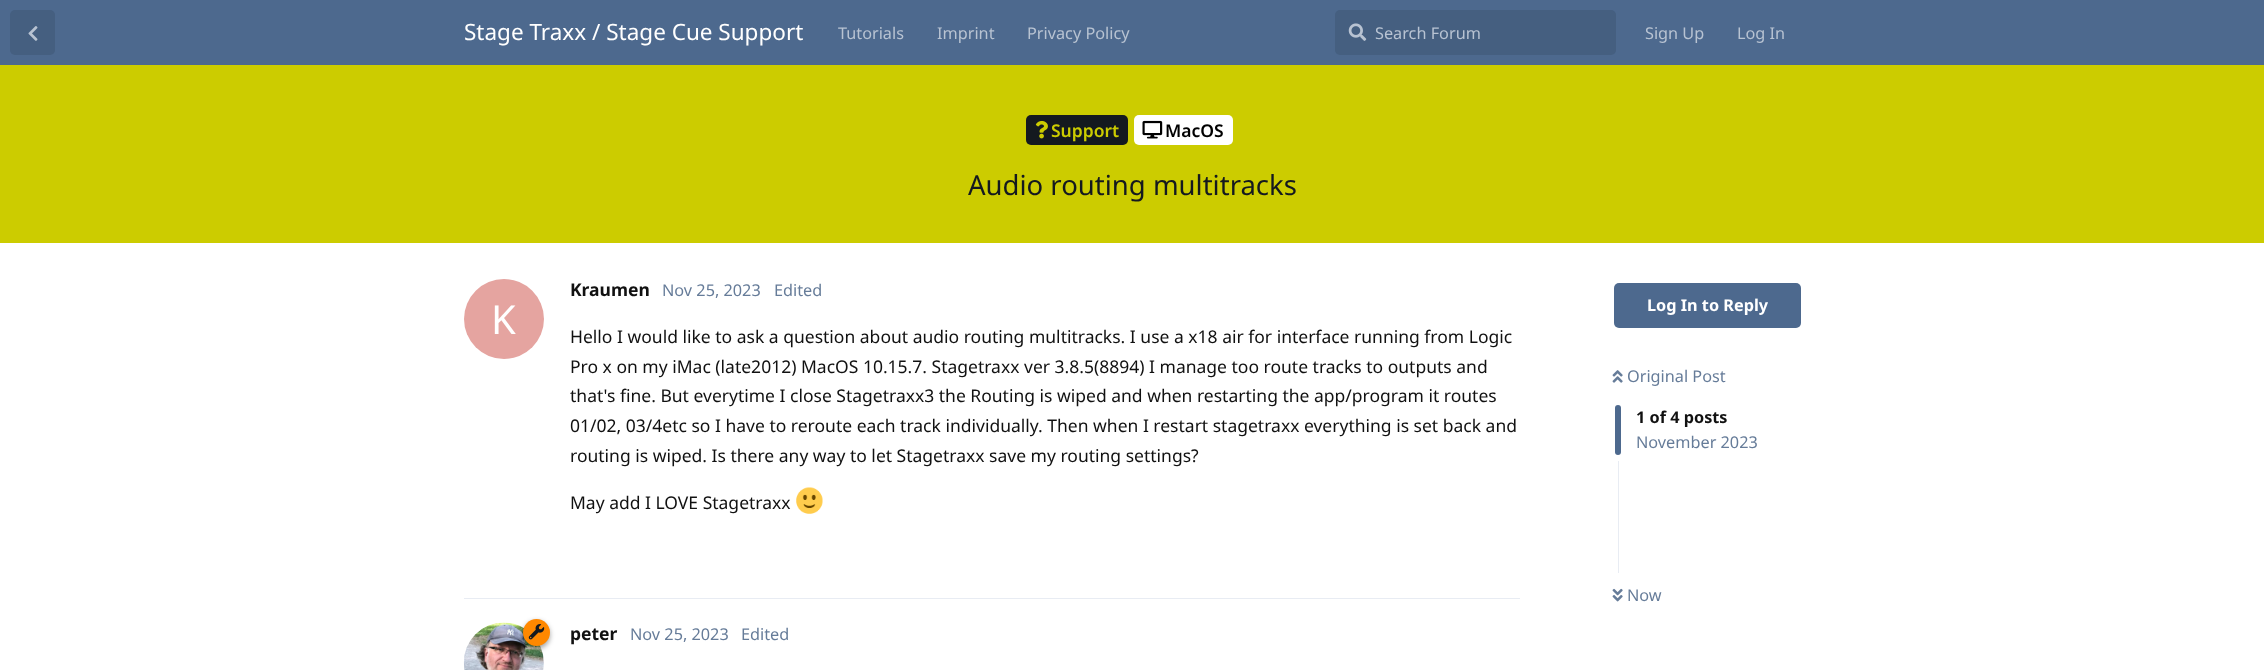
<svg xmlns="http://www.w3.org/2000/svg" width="2264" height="670">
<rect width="100%" height="100%" fill="#fff"/>
<rect width="2264" height="65" fill="#4d698e"/>
<rect x="10" y="10" width="45" height="45" rx="5" fill="#455f80"/>
<image x="28" y="26" width="10" height="15" href="media/1.png"/>
<text x="464" y="40" style="font-family:Noto Sans;font-size:22.5px;fill:#fff">Stage Traxx / Stage Cue Support</text>
<text x="838" y="39" style="font-family:Noto Sans;font-size:16.25px;fill:#b8c3d2">Tutorials</text>
<text x="937" y="39" style="font-family:Noto Sans;font-size:16.25px;fill:#b8c3d2">Imprint</text>
<text x="1027" y="39" style="font-family:Noto Sans;font-size:16.25px;fill:#b8c3d2">Privacy Policy</text>
<rect x="1335" y="10" width="281" height="45" rx="5" fill="#455f80"/>
<image x="1348" y="23" width="19" height="18" href="media/2.png"/>
<text x="1375" y="39" style="font-family:Noto Sans;font-size:16.25px;fill:#b8c3d2">Search Forum</text>
<text x="1645" y="39" style="font-family:Noto Sans;font-size:16.25px;fill:#b8c3d2">Sign Up</text>
<text x="1737" y="39" style="font-family:Noto Sans;font-size:16.25px;fill:#b8c3d2">Log In</text>
<rect y="65" width="2264" height="178" fill="#cc0"/>
<rect x="1026" y="115" width="102" height="30" rx="5" fill="#14191f"/>
<image x="1035" y="120" width="13" height="19" href="media/3.png"/>
<text x="1051" y="137" style="font-family:Noto Sans;font-size:17.5px;font-weight:600;fill:#cc0">Support</text>
<rect x="1134" y="115" width="99" height="30" rx="5" fill="#fff"/>
<image x="1142" y="120" width="21" height="19" href="media/4.png"/>
<text x="1165" y="137" style="font-family:Noto Sans;font-size:17.5px;font-weight:600;fill:#000">MacOS</text>
<text x="968" y="195" style="font-family:Noto Sans;font-size:27.5px;fill:#14191f">Audio routing multitracks</text>
<rect x="464" y="598" width="1056" height="1" fill="#e8ecf3"/>
<text x="570" y="296" style="font-family:Noto Sans;font-size:17.5px;font-weight:bold;fill:#111">Kraumen</text>
<circle cx="504" cy="319" r="40" fill="#e5a4a0"/>
<text x="491" y="334" style="font-family:Noto Sans;font-size:40px;fill:#fff">K</text>
<text x="662" y="296" style="font-family:Noto Sans;font-size:16.25px;fill:#667c99">Nov 25, 2023</text>
<text x="774" y="296" style="font-family:Noto Sans;font-size:16.25px;fill:#667c99">Edited</text>
<text x="570" y="343" style="font-family:Noto Sans;font-size:17.5px;fill:#111">Hello I would like to ask a question about audio routing multitracks. I use a x18 air for interface running from Logic</text>
<text x="570" y="373" style="font-family:Noto Sans;font-size:17.5px;fill:#111">Pro x on my iMac (late2012) MacOS 10.15.7. Stagetraxx ver 3.8.5(8894) I manage too route tracks to outputs and</text>
<text x="570" y="402" style="font-family:Noto Sans;font-size:17.5px;fill:#111">that's fine. But everytime I close Stagetraxx3 the Routing is wiped and when restarting the app/program it routes</text>
<text x="570" y="432" style="font-family:Noto Sans;font-size:17.5px;fill:#111">01/02, 03/4etc so I have to reroute each track individually. Then when I restart stagetraxx everything is set back and</text>
<text x="570" y="462" style="font-family:Noto Sans;font-size:17.5px;fill:#111">routing is wiped. Is there any way to let Stagetraxx save my routing settings?</text>
<text x="570" y="509" style="font-family:Noto Sans;font-size:17.5px;fill:#111">May add I LOVE Stagetraxx</text>
<image x="796" y="487" width="27" height="27" href="media/5.png"/>
<circle cx="504" cy="663" r="40" fill="#e8ecf3"/>
<image x="463" y="622" width="81" height="48" href="media/7.png"/>
<rect x="523" y="621" width="27" height="28" rx="13.5" fill="#00000059" filter="blur(2.5px)"/>
<circle cx="536.5" cy="632.5" r="13.5" fill="#f80"/>
<image x="528" y="624" width="17" height="16" href="media/6.png"/>
<text x="570" y="640" style="font-family:Noto Sans;font-size:17.5px;font-weight:bold;fill:#111">peter</text>
<text x="630" y="640" style="font-family:Noto Sans;font-size:16.25px;fill:#667c99">Nov 25, 2023</text>
<text x="741" y="640" style="font-family:Noto Sans;font-size:16.25px;fill:#667c99">Edited</text>
<rect x="1614" y="283" width="187" height="45" rx="5" fill="#4d698e"/>
<text x="1647" y="311" style="font-family:Noto Sans;font-size:16.25px;font-weight:bold;fill:#fff">Log In to Reply</text>
<image x="1612" y="370" width="11" height="13" href="media/8.png"/>
<text x="1627" y="382" style="font-family:Noto Sans;font-size:16.25px;fill:#667c99">Original Post</text>
<rect x="1615" y="405" width="6" height="50" rx="3" fill="#4d698e"/>
<text x="1636" y="423" style="font-family:Noto Sans;font-size:16.25px;font-weight:bold;fill:#111">1 of 4 posts</text>
<text x="1636" y="448" style="font-family:Noto Sans;font-size:16.25px;fill:#667c99">November 2023</text>
<rect x="1618" y="461" width="1" height="112" fill="#e8ecf3"/>
<image x="1612" y="588" width="11" height="14" href="media/9.png"/>
<text x="1627" y="601" style="font-family:Noto Sans;font-size:16.25px;fill:#667c99">Now</text>
</svg>
